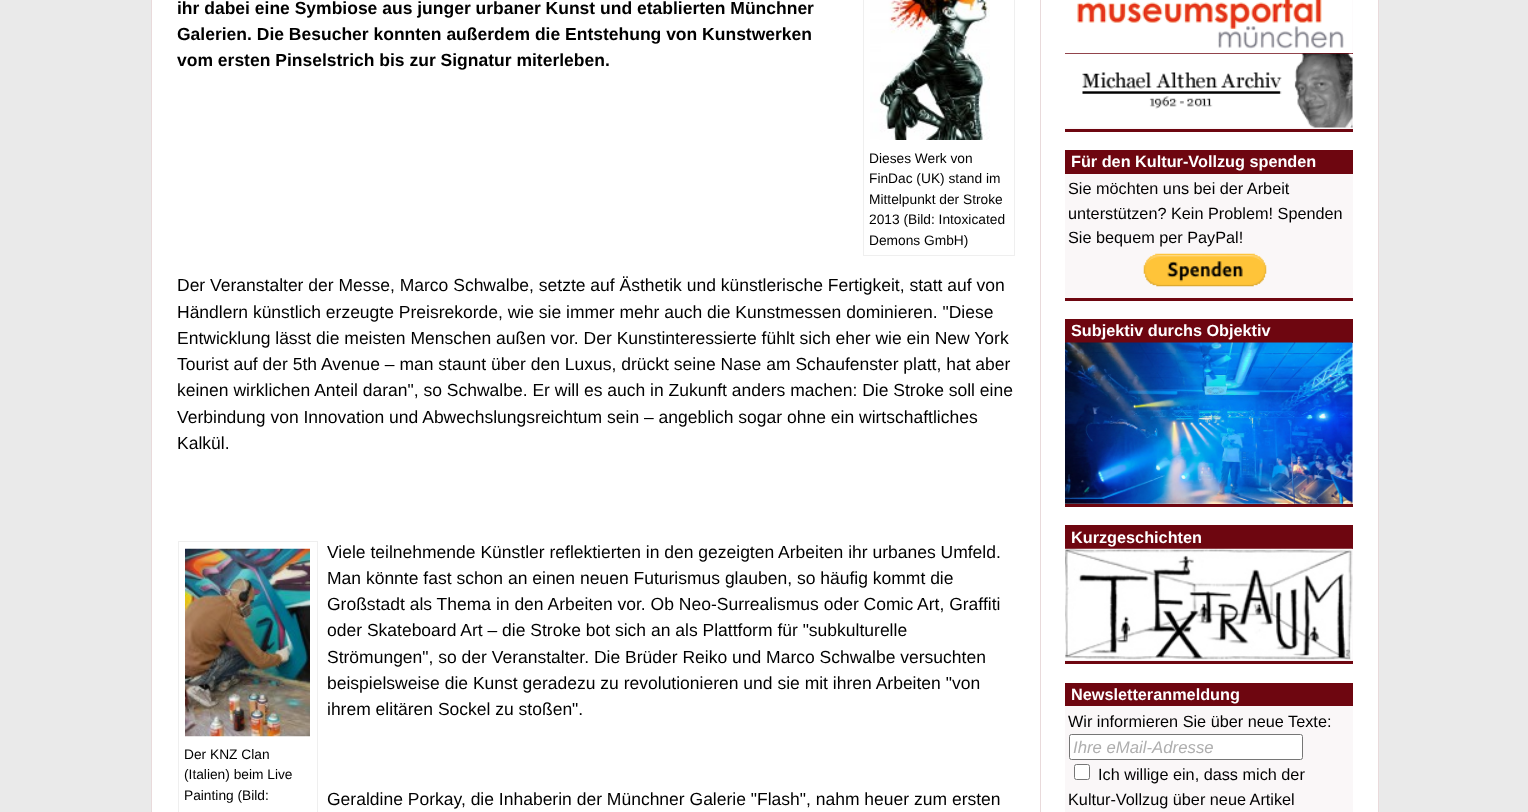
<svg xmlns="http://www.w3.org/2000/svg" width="1528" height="812">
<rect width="100%" height="100%" fill="#eaeaea"/>
<rect x="152" width="1226" height="812" fill="#fff"/>
<rect x="1378" width="1" height="812" fill="#e9dadb"/>
<rect x="151" width="1" height="812" fill="#e9dadb"/>
<rect x="1040" width="1" height="812" fill="#e9dadb"/>
<text x="177" y="14" style="font-family:Liberation Sans;font-size:17.5px;font-weight:bold;fill:#000">ihr dabei eine Symbiose aus junger urbaner Kunst und etablierten Münchner</text>
<text x="177" y="40" style="font-family:Liberation Sans;font-size:17.5px;font-weight:bold;fill:#000">Galerien. Die Besucher konnten außerdem die Entstehung von Kunstwerken</text>
<text x="177" y="66" style="font-family:Liberation Sans;font-size:17.5px;font-weight:bold;fill:#000">vom ersten Pinselstrich bis zur Signatur miterleben.</text>
<rect x="863.5" y="-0.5" width="151" height="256" fill="none" stroke="#efefef"/>
<image x="870" y="0" width="120" height="140" href="media/1.png"/>
<text x="869" y="163" style="font-family:Liberation Sans;font-size:13.75px;fill:#000">Dieses Werk von</text>
<text x="869" y="183" style="font-family:Liberation Sans;font-size:13.75px;fill:#000">FinDac (UK) stand im</text>
<text x="869" y="204" style="font-family:Liberation Sans;font-size:13.75px;fill:#000">Mittelpunkt der Stroke</text>
<text x="869" y="224" style="font-family:Liberation Sans;font-size:13.75px;fill:#000">2013 (Bild: Intoxicated</text>
<text x="869" y="245" style="font-family:Liberation Sans;font-size:13.75px;fill:#000">Demons GmbH)</text>
<text x="177" y="291" style="font-family:Liberation Sans;font-size:17.5px;fill:#000">Der Veranstalter der Messe, Marco Schwalbe, setzte auf Ästhetik und künstlerische Fertigkeit, statt auf von</text>
<text x="177" y="318" style="font-family:Liberation Sans;font-size:17.5px;fill:#000">Händlern künstlich erzeugte Preisrekorde, wie sie immer mehr auch die Kunstmessen dominieren. "Diese</text>
<text x="177" y="344" style="font-family:Liberation Sans;font-size:17.5px;fill:#000">Entwicklung lässt die meisten Menschen außen vor. Der Kunstinteressierte fühlt sich eher wie ein New York</text>
<text x="177" y="370" style="font-family:Liberation Sans;font-size:17.5px;fill:#000">Tourist auf der 5th Avenue – man staunt über den Luxus, drückt seine Nase am Schaufenster platt, hat aber</text>
<text x="177" y="396" style="font-family:Liberation Sans;font-size:17.5px;fill:#000">keinen wirklichen Anteil daran", so Schwalbe. Er will es auch in Zukunft anders machen: Die Stroke soll eine</text>
<text x="177" y="423" style="font-family:Liberation Sans;font-size:17.5px;fill:#000">Verbindung von Innovation und Abwechslungsreichtum sein – angeblich sogar ohne ein wirtschaftliches</text>
<text x="177" y="449" style="font-family:Liberation Sans;font-size:17.5px;fill:#000">Kalkül.</text>
<text x="327" y="558" style="font-family:Liberation Sans;font-size:17.5px;fill:#000">Viele teilnehmende Künstler reflektierten in den gezeigten Arbeiten ihr urbanes Umfeld.</text>
<text x="327" y="584" style="font-family:Liberation Sans;font-size:17.5px;fill:#000">Man könnte fast schon an einen neuen Futurismus glauben, so häufig kommt die</text>
<text x="327" y="610" style="font-family:Liberation Sans;font-size:17.5px;fill:#000">Großstadt als Thema in den Arbeiten vor. Ob Neo-Surrealismus oder Comic Art, Graffiti</text>
<text x="327" y="636" style="font-family:Liberation Sans;font-size:17.5px;fill:#000">oder Skateboard Art – die Stroke bot sich an als Plattform für "subkulturelle</text>
<text x="327" y="663" style="font-family:Liberation Sans;font-size:17.5px;fill:#000">Strömungen", so der Veranstalter. Die Brüder Reiko und Marco Schwalbe versuchten</text>
<text x="327" y="689" style="font-family:Liberation Sans;font-size:17.5px;fill:#000">beispielsweise die Kunst geradezu zu revolutionieren und sie mit ihren Arbeiten "von</text>
<text x="327" y="715" style="font-family:Liberation Sans;font-size:17.5px;fill:#000">ihrem elitären Sockel zu stoßen".</text>
<rect x="178.5" y="541.5" width="139" height="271" fill="none" stroke="#efefef"/>
<image x="185" y="548" width="125" height="189" href="media/2.png"/>
<text x="184" y="759" style="font-family:Liberation Sans;font-size:13.75px;fill:#000">Der KNZ Clan</text>
<text x="184" y="779" style="font-family:Liberation Sans;font-size:13.75px;fill:#000">(Italien) beim Live</text>
<text x="184" y="800" style="font-family:Liberation Sans;font-size:13.75px;fill:#000">Painting (Bild:</text>
<text x="327" y="805" style="font-family:Liberation Sans;font-size:17.5px;fill:#000">Geraldine Porkay, die Inhaberin der Münchner Galerie "Flash", nahm heuer zum ersten</text>
<rect x="1065" width="288" height="129" fill="#faf7f8"/>
<rect x="1065" y="129" width="288" height="3" fill="#6e0610"/>
<image x="1065" y="0" width="288" height="60" href="media/3.png"/>
<rect x="1065" y="53" width="288" height="1" fill="#6e0610"/>
<image x="1065" y="53" width="288" height="75" href="media/4.png"/>
<rect x="1065" y="150" width="288" height="24" fill="#6e0610"/>
<text x="1071" y="167" style="font-family:Liberation Sans;font-size:16.25px;font-weight:bold;fill:#fff">Für den Kultur-Vollzug spenden</text>
<rect x="1065" y="174" width="288" height="124" fill="#faf7f8"/>
<rect x="1065" y="298" width="288" height="3" fill="#6e0610"/>
<text x="1068" y="194" style="font-family:Liberation Sans;font-size:16.25px;fill:#000">Sie möchten uns bei der Arbeit</text>
<text x="1068" y="219" style="font-family:Liberation Sans;font-size:16.25px;fill:#000">unterstützen? Kein Problem! Spenden</text>
<text x="1068" y="243" style="font-family:Liberation Sans;font-size:16.25px;fill:#000">Sie bequem per PayPal!</text>
<image x="1143" y="253" width="124" height="34" href="media/5.png"/>
<rect x="1065" y="319" width="288" height="24" fill="#6e0610"/>
<text x="1071" y="336" style="font-family:Liberation Sans;font-size:16.25px;font-weight:bold;fill:#fff">Subjektiv durchs Objektiv</text>
<rect x="1065" y="343" width="288" height="161" fill="#faf7f8"/>
<rect x="1065" y="504" width="288" height="3" fill="#6e0610"/>
<image x="1065" y="342" width="288" height="162" href="media/6.png"/>
<rect x="1065" y="525" width="288" height="24" fill="#6e0610"/>
<text x="1071" y="543" style="font-family:Liberation Sans;font-size:16.25px;font-weight:bold;fill:#fff">Kurzgeschichten</text>
<rect x="1065" y="549" width="288" height="112" fill="#faf7f8"/>
<rect x="1065" y="661" width="288" height="3" fill="#6e0610"/>
<image x="1065" y="548" width="288" height="112" href="media/7.png"/>
<rect x="1065" y="683" width="288" height="23" fill="#6e0610"/>
<text x="1071" y="700" style="font-family:Liberation Sans;font-size:16.25px;font-weight:bold;fill:#fff">Newsletteranmeldung</text>
<rect x="1065" y="706" width="288" height="106" fill="#faf7f8"/>
<text x="1068" y="727" style="font-family:Liberation Sans;font-size:16.25px;fill:#000">Wir informieren Sie über neue Texte:</text>
<rect x="1069.5" y="734.5" width="233" height="25" rx="2" fill="#fff" stroke="#767676"/>
<text x="1073" y="753" style="font-family:Liberation Sans;font-size:16.75px;font-style:italic;fill:#afafaf">Ihre eMail-Adresse</text>
<rect x="1074.5" y="764.5" width="15" height="15" rx="2" fill="#fff" stroke="#767676"/>
<text x="1098" y="780" style="font-family:Liberation Sans;font-size:16.25px;fill:#000">Ich willige ein, dass mich der</text>
<text x="1068" y="805" style="font-family:Liberation Sans;font-size:16.25px;fill:#000">Kultur-Vollzug über neue Artikel</text>
</svg>
